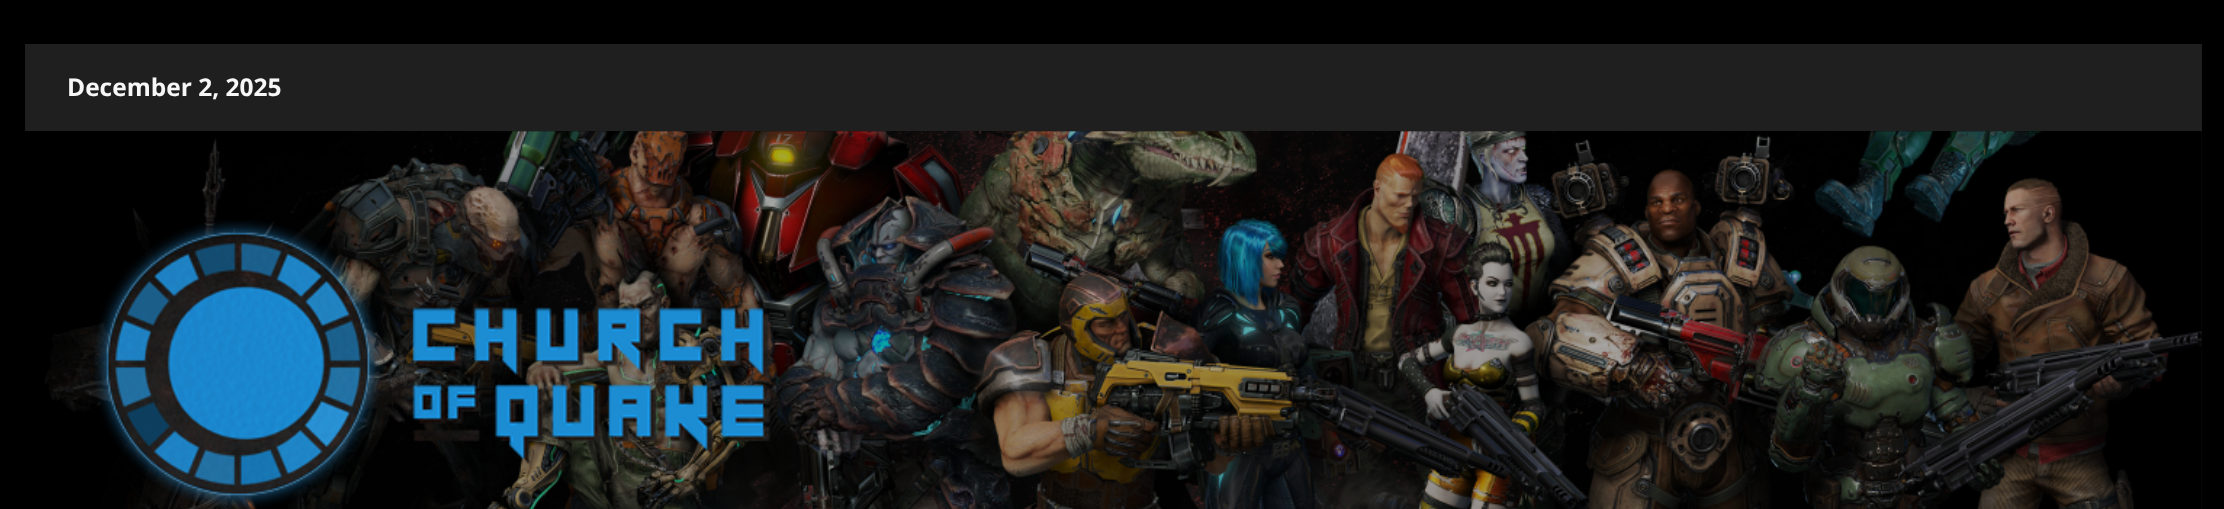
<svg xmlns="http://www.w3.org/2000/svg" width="2224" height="509">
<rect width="100%" height="100%" fill="#000"/>
<rect x="25" y="131" width="2177" height="378" fill="#0b0b0b"/>
<rect x="25" y="44" width="2177" height="87" fill="#1f1f1f"/>
<text x="67" y="96" style="font-family:Open Sans;font-size:24.5px;font-weight:bold;fill:#f7f7f7">December 2, 2025</text>
<image x="25" y="131" width="2177" height="378" href="media/1.png"/>
<image x="94" y="220" width="677" height="288" href="media/2.png"/>
</svg>
